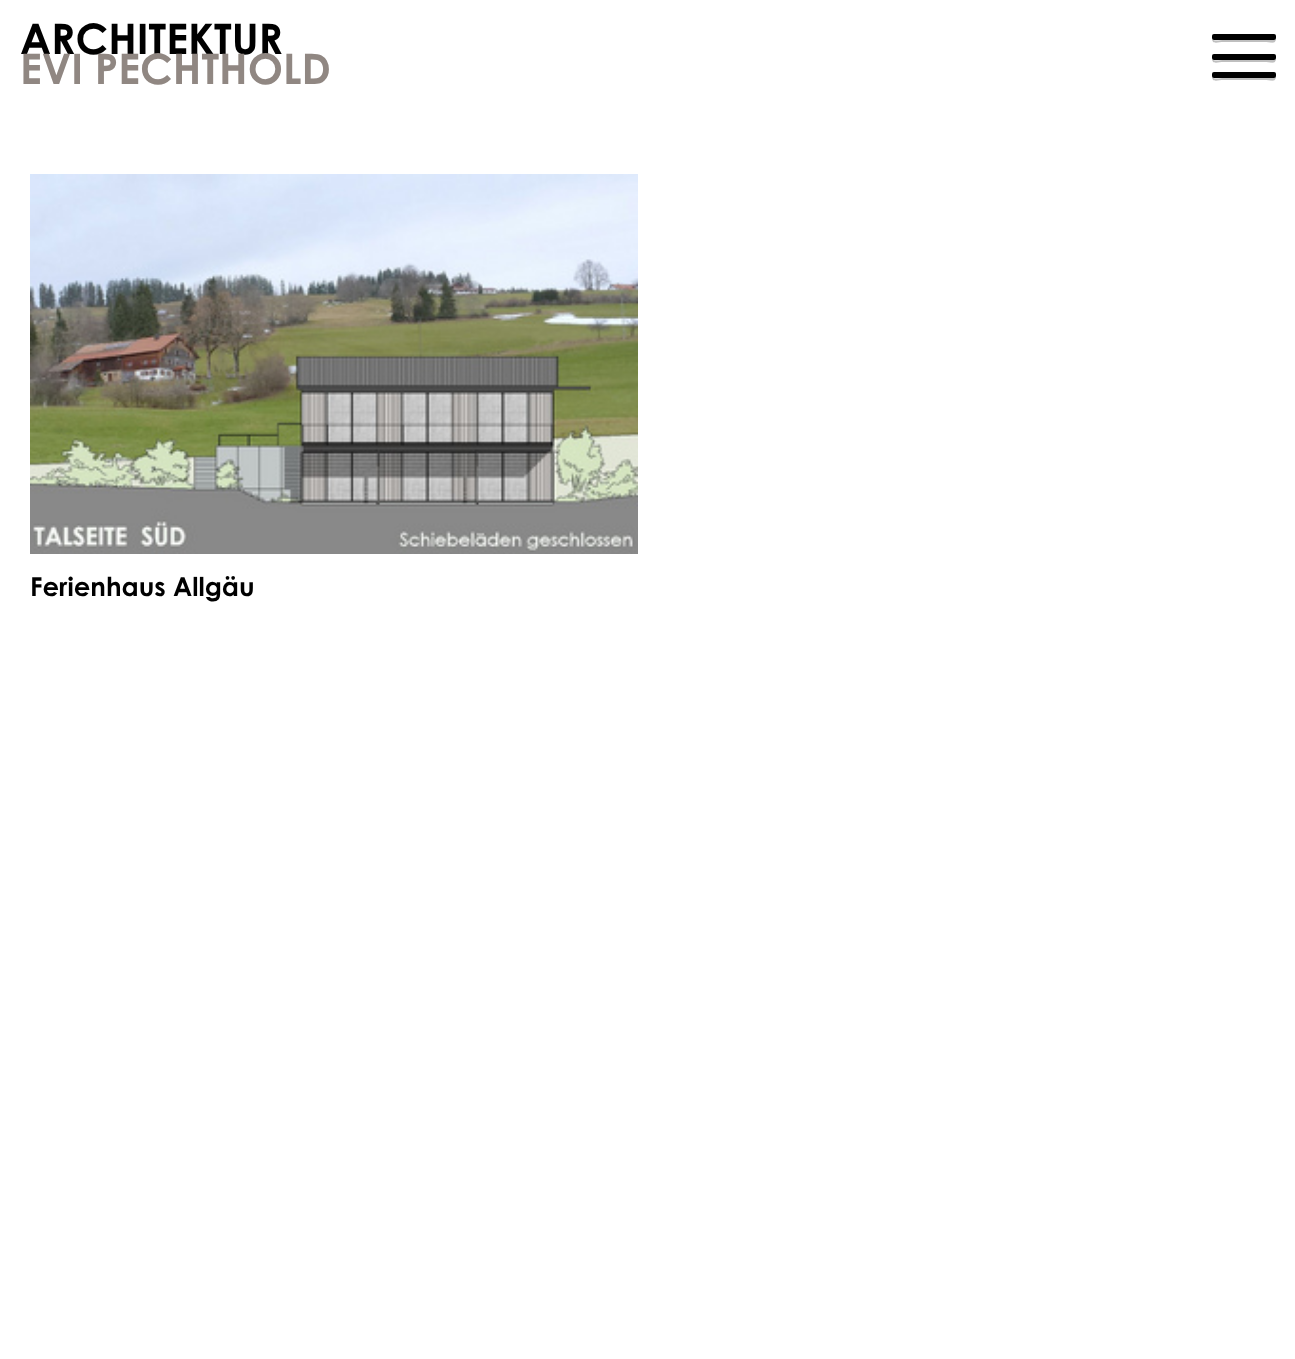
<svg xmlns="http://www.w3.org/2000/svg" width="1295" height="1359">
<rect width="100%" height="100%" fill="#fff"/>
<text x="20" y="54" style="font-family:Century Gothic;font-size:42px;font-weight:bold;fill:#000">ARCHITEKTUR</text>
<text x="20" y="84" style="font-family:Century Gothic;font-size:42px;font-weight:bold;fill:#908782">EVI PECHTHOLD</text>
<image x="30" y="174" width="608" height="380" href="media/1.png"/>
<text x="30" y="596" style="font-family:Century Gothic;font-size:26px;font-weight:bold;fill:#000">Ferienhaus Allgäu</text>
<path d="M1212 38c0 7 5 4 12 4h40c7 0 12 3 12-4l-1 2h-51c-4 0-12 2-12-2z" fill="#bfbfbf"/>
<rect x="1212" y="34" width="64" height="6" rx="2" fill="#000"/>
<path d="M1212 58c0 7 5 4 12 4h40c7 0 12 3 12-4l-1 2h-51c-4 0-12 2-12-2z" fill="#bfbfbf"/>
<rect x="1212" y="54" width="64" height="6" rx="2" fill="#000"/>
<path d="M1212 76c0 7 5 4 12 4h40c7 0 12 3 12-4l-1 2h-51c-4 0-12 2-12-2z" fill="#bfbfbf"/>
<rect x="1212" y="72" width="64" height="6" rx="2" fill="#000"/>
</svg>
